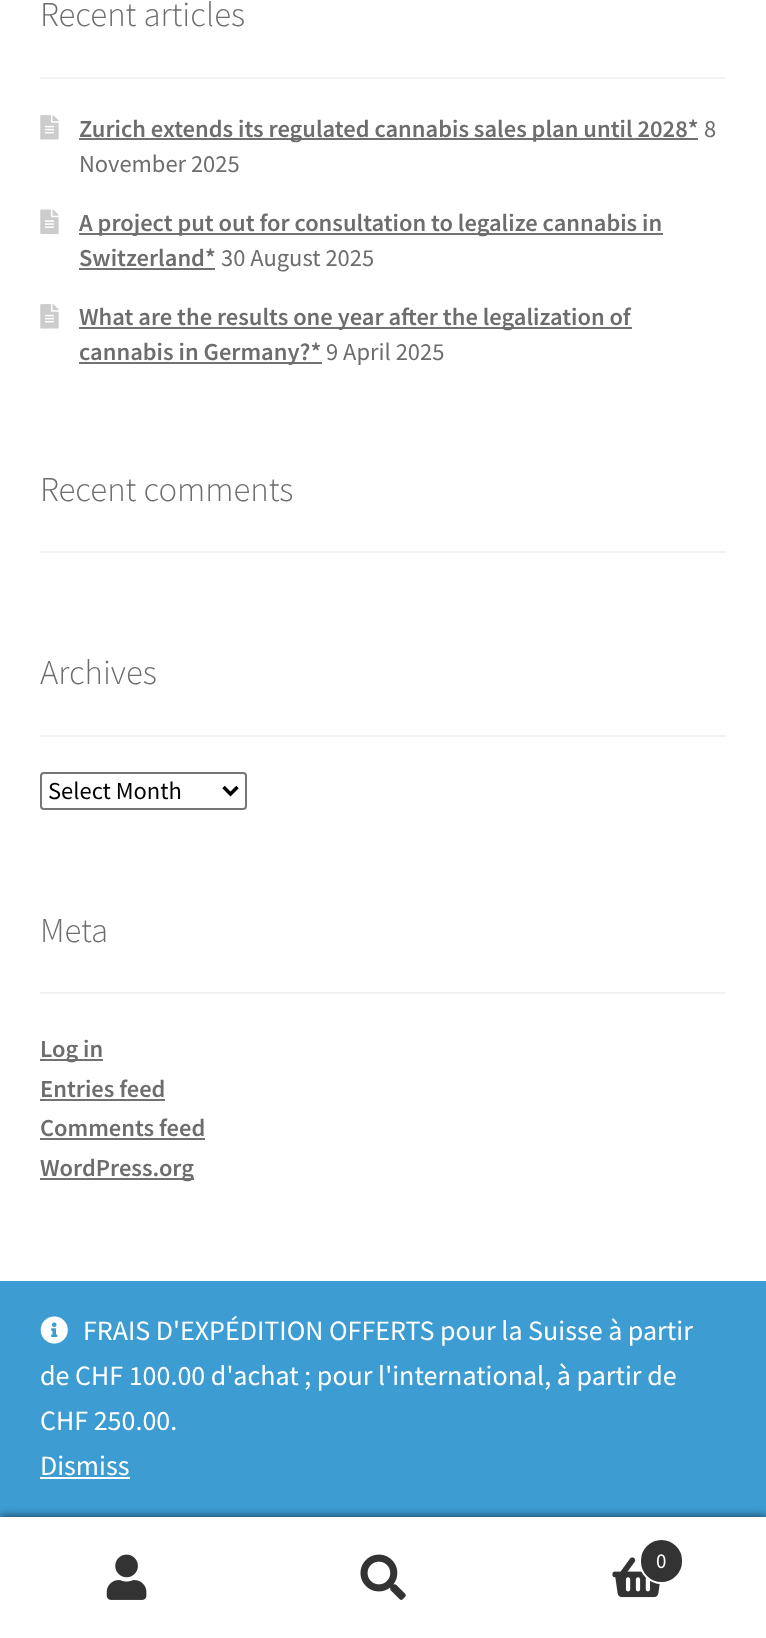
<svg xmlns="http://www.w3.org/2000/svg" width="766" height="1638">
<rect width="100%" height="100%" fill="#fff"/>
<rect x="40" y="77" width="686" height="2" fill="#f2f2f2"/>
<text x="40" y="26" style="font-family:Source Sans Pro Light;font-size:34.75px;font-weight:300;fill:#6d6d6d">Recent articles</text>
<image x="40" y="115" width="19" height="25" href="media/1.png"/>
<rect x="79" y="138" width="619" height="2" fill="#727272"/>
<text x="79" y="137" style="font-family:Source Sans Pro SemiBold;font-size:24.5px;font-weight:600;fill:#6d6d6d">Zurich extends its regulated cannabis sales plan until 2028*</text>
<text x="704" y="137" style="font-family:Source Sans Pro;font-size:24.5px;fill:#6d6d6d">8</text>
<text x="79" y="172" style="font-family:Source Sans Pro;font-size:24.5px;fill:#6d6d6d">November 2025</text>
<image x="40" y="209" width="19" height="25" href="media/2.png"/>
<rect x="79" y="233" width="584" height="2" fill="#727272"/>
<text x="79" y="231" style="font-family:Source Sans Pro SemiBold;font-size:24.5px;font-weight:600;fill:#6d6d6d">A project put out for consultation to legalize cannabis in</text>
<text x="79" y="266" style="font-family:Source Sans Pro SemiBold;font-size:24.5px;font-weight:600;fill:#6d6d6d">Switzerland*</text>
<rect x="79" y="268" width="136" height="2" fill="#727272"/>
<text x="221" y="266" style="font-family:Source Sans Pro;font-size:24.5px;fill:#6d6d6d">30 August 2025</text>
<image x="40" y="304" width="19" height="25" href="media/1.png"/>
<rect x="79" y="327" width="553" height="2" fill="#727272"/>
<text x="79" y="325" style="font-family:Source Sans Pro SemiBold;font-size:24.5px;font-weight:600;fill:#6d6d6d">What are the results one year after the legalization of</text>
<rect x="79" y="362" width="243" height="2" fill="#727272"/>
<text x="79" y="360" style="font-family:Source Sans Pro SemiBold;font-size:24.5px;font-weight:600;fill:#6d6d6d">cannabis in Germany?*</text>
<text x="326" y="360" style="font-family:Source Sans Pro;font-size:24.5px;fill:#6d6d6d">9 April 2025</text>
<rect x="40" y="551" width="686" height="2" fill="#f2f2f2"/>
<text x="40" y="501" style="font-family:Source Sans Pro Light;font-size:34.75px;font-weight:300;fill:#6d6d6d">Recent comments</text>
<rect x="40" y="735" width="686" height="2" fill="#f2f2f2"/>
<text x="40" y="684" style="font-family:Source Sans Pro Light;font-size:34.75px;font-weight:300;fill:#6d6d6d">Archives</text>
<rect x="41" y="773" width="205" height="36" rx="3" fill="none" stroke="#767676" stroke-width="2"/>
<path d="M223.5 787l7 7l7-7" fill="none" stroke="#000" stroke-width="3.5"/>
<text x="48" y="799" style="font-family:Source Sans Pro;font-size:24.5px;fill:#000">Select Month</text>
<rect x="40" y="992" width="686" height="2" fill="#f2f2f2"/>
<text x="40" y="942" style="font-family:Source Sans Pro Light;font-size:34.75px;font-weight:300;fill:#6d6d6d">Meta</text>
<rect x="40" y="1059" width="63" height="2" fill="#727272"/>
<text x="40" y="1057" style="font-family:Source Sans Pro SemiBold;font-size:24.5px;font-weight:600;fill:#6d6d6d">Log in</text>
<text x="40" y="1097" style="font-family:Source Sans Pro SemiBold;font-size:24.5px;font-weight:600;fill:#6d6d6d">Entries feed</text>
<rect x="40" y="1099" width="125" height="2" fill="#727272"/>
<text x="40" y="1136" style="font-family:Source Sans Pro SemiBold;font-size:24.5px;font-weight:600;fill:#6d6d6d">Comments feed</text>
<rect x="40" y="1138" width="165" height="2" fill="#727272"/>
<rect x="40" y="1178" width="154" height="2" fill="#727272"/>
<text x="40" y="1176" style="font-family:Source Sans Pro SemiBold;font-size:24.5px;font-weight:600;fill:#6d6d6d">WordPress.org</text>
<rect y="1281" width="766" height="236" fill="#3d9cd2"/>
<rect y="1517" width="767" height="121" fill="#000000b3" filter="blur(5px)"/>
<rect y="1517" width="766" height="2" fill="#fff"/>
<rect y="1519" width="766" height="119" fill="#fff"/>
<image x="106" y="1554" width="41" height="46" href="media/3.png"/>
<image x="360" y="1554" width="46" height="46" href="media/4.png"/>
<image x="612" y="1557" width="48" height="41" href="media/5.png"/>
<rect x="640" y="1539" width="43" height="44" rx="21.5" fill="#333" stroke="#fff" stroke-width="2"/>
<text x="656" y="1568" style="font-family:Source Sans Pro;font-size:21px;fill:#fff">0</text>
<image x="40" y="1316" width="28" height="28" href="media/6.png"/>
<text x="83" y="1340" style="font-family:Source Sans Pro;font-size:28px;fill:#fff">FRAIS D'EXPÉDITION OFFERTS pour la Suisse à partir</text>
<text x="40" y="1385" style="font-family:Source Sans Pro;font-size:28px;fill:#fff">de CHF 100.00 d'achat ; pour l'international, à partir de</text>
<text x="40" y="1430" style="font-family:Source Sans Pro;font-size:28px;fill:#fff">CHF 250.00.</text>
<text x="40" y="1475" style="font-family:Source Sans Pro;font-size:28px;fill:#fff">Dismiss</text>
<rect x="40" y="1477" width="90" height="2" fill="#fff"/>
</svg>
